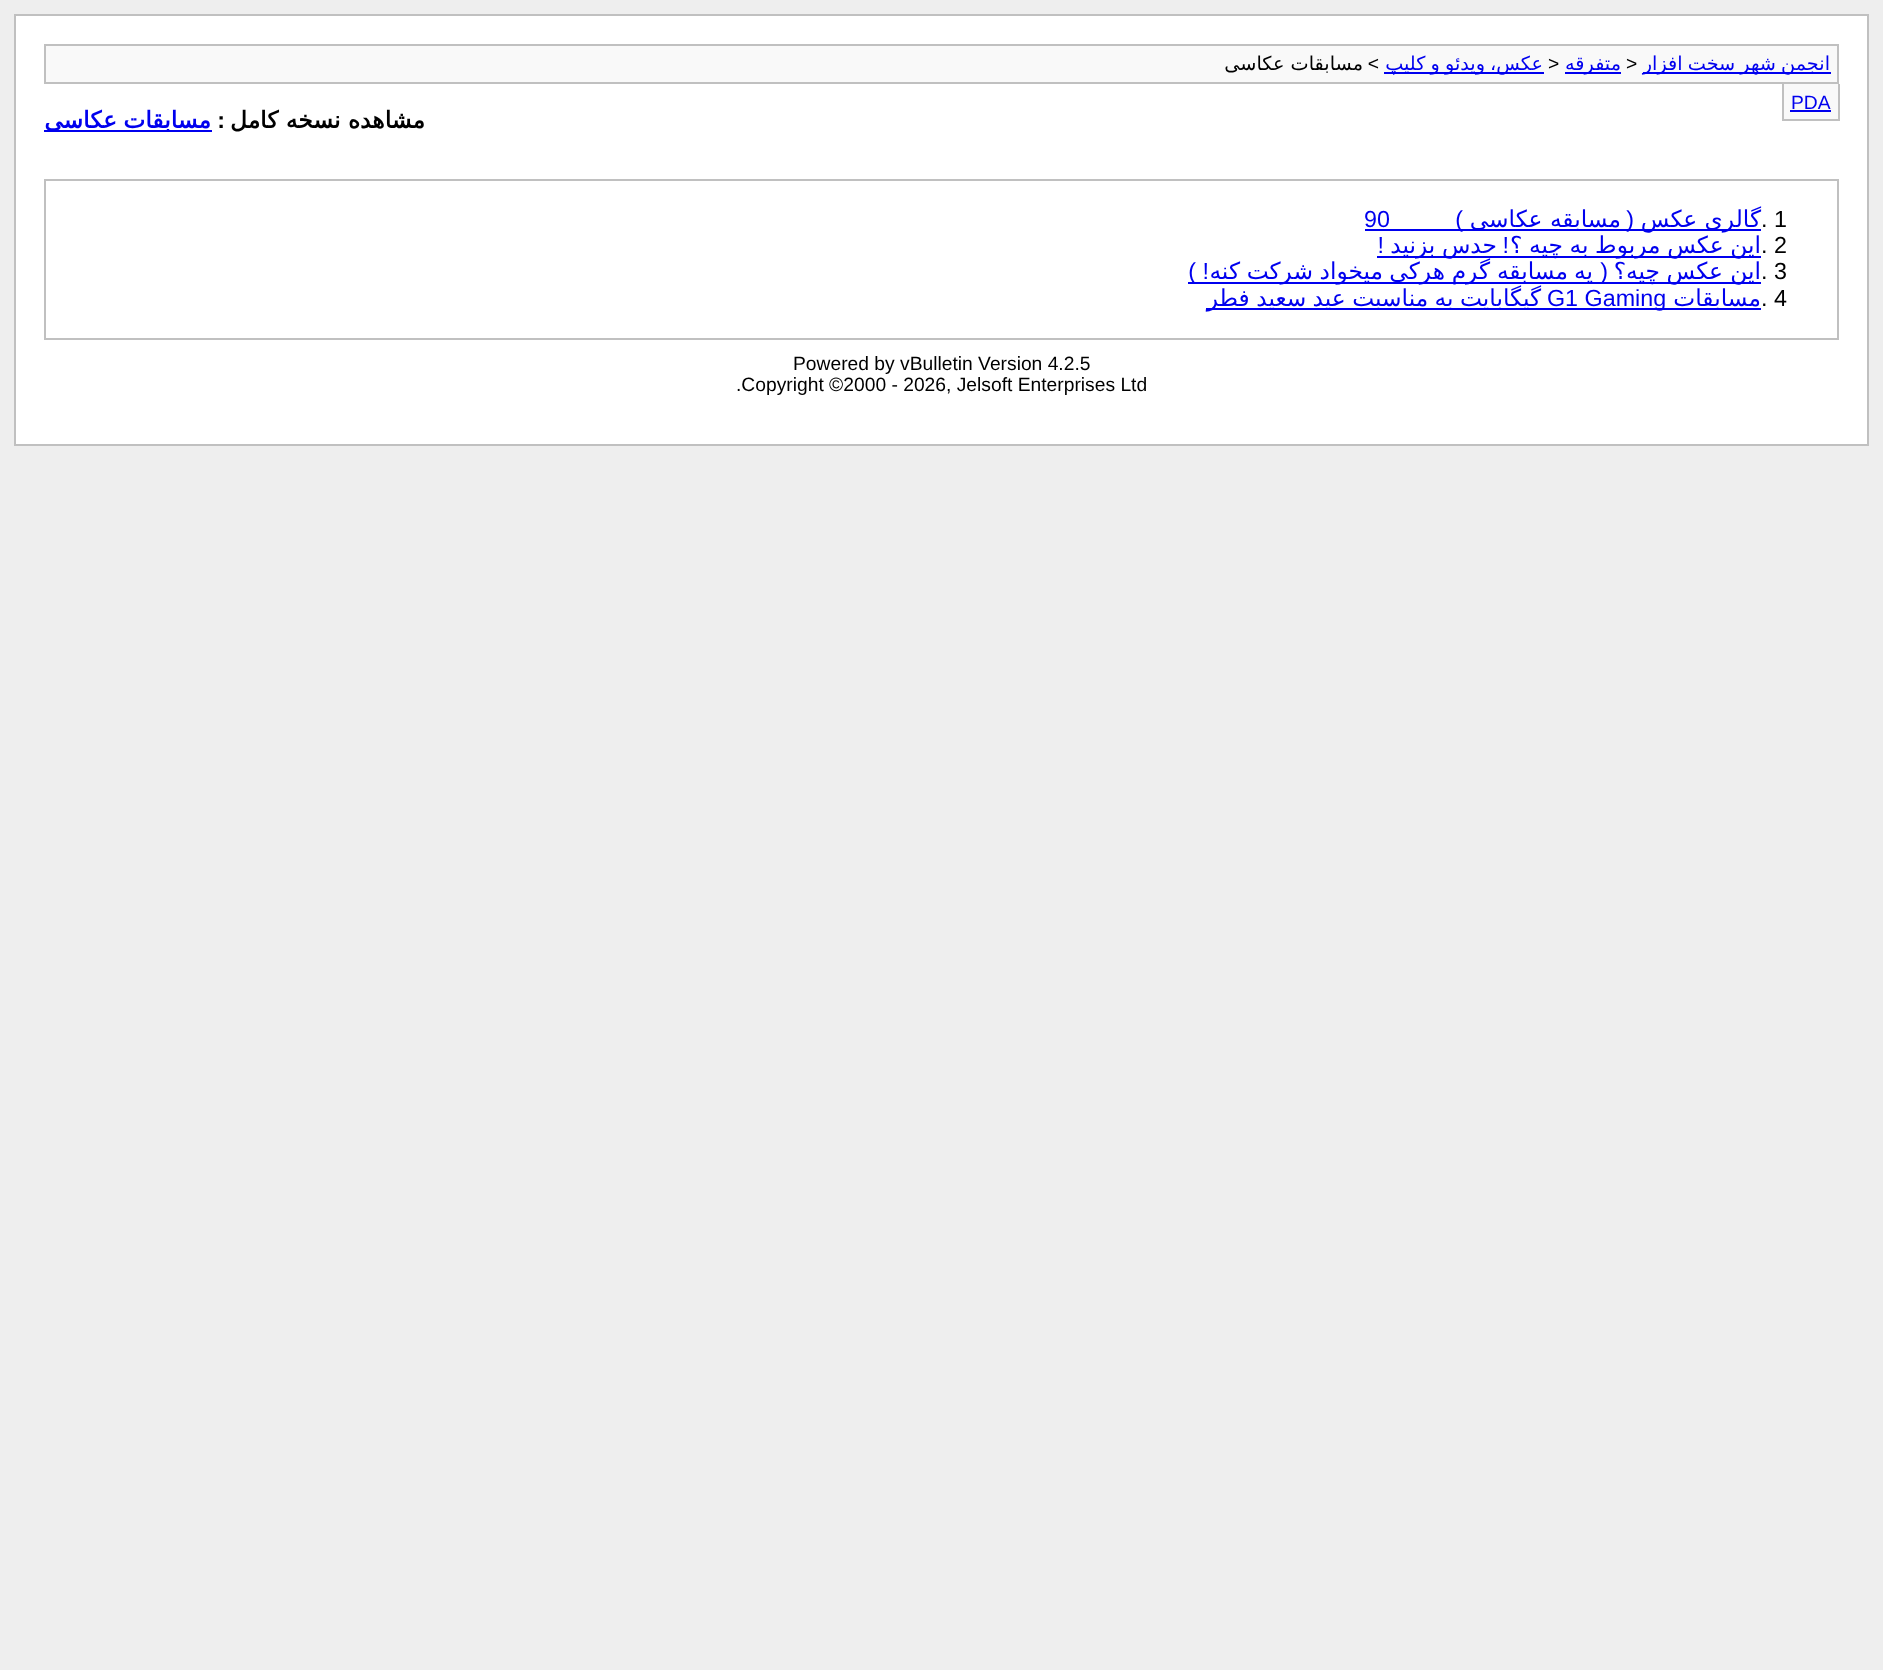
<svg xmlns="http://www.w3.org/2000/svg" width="1883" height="1670">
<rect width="100%" height="100%" fill="#eee"/>
<rect x="15" y="15" width="1853" height="430" fill="#fff" stroke="#c0c0c0" stroke-width="2"/>
<rect x="45" y="45" width="1793" height="38" fill="#f9f9f9" stroke="#c0c0c0" stroke-width="2"/>
<rect x="1643" y="72" width="188" height="2" fill="#00e"/>
<text x="1830" y="70" word-spacing="-1" style="font-family:DejaVu Sans;font-size:19.25px;direction:rtl;fill:#00e">انجمن شهر سخت افزار</text>
<text x="1626" y="70" style="font-family:Liberation Sans;font-size:19.25px;fill:#000">&gt;</text>
<rect x="1565" y="72" width="56" height="2" fill="#00e"/>
<text x="1621" y="70" style="font-family:DejaVu Sans;font-size:19.25px;direction:rtl;fill:#00e">متفرقه</text>
<text x="1548" y="70" style="font-family:Liberation Sans;font-size:19.25px;fill:#000">&gt;</text>
<rect x="1384" y="72" width="160" height="2" fill="#00e"/>
<text x="1543" y="70" word-spacing="-1" style="font-family:DejaVu Sans;font-size:19.25px;direction:rtl;fill:#00e">عکس، ویدئو و کلیپ</text>
<text x="1379" y="70" style="font-family:Liberation Sans;font-size:19.25px;direction:rtl;fill:#000">&gt;</text>
<text x="1363" y="70" style="font-family:DejaVu Sans;font-size:19.25px;direction:rtl;fill:#000">مسابقات عکاسی</text>
<rect x="1784" y="84" width="54" height="35" fill="#f9f9f9"/>
<rect x="1838" y="84" width="2" height="37" fill="#c0c0c0"/>
<rect x="1782" y="119" width="57" height="2" fill="#c0c0c0"/>
<rect x="1782" y="84" width="2" height="37" fill="#c0c0c0"/>
<text x="1791" y="109" style="font-family:Liberation Sans;font-size:19.25px;fill:#00e">PDA</text>
<rect x="1790" y="110" width="41" height="2" fill="#00e"/>
<text x="425" y="128" style="font-family:DejaVu Sans;font-size:23.3px;font-weight:bold;direction:rtl;fill:#000">مشاهده نسخه کامل</text>
<text x="225" y="128" style="font-family:Liberation Sans;font-size:23.3px;font-weight:bold;direction:rtl;fill:#000">:</text>
<rect x="44" y="130" width="168" height="2" fill="#00e"/>
<text x="211" y="128" word-spacing="-1" style="font-family:DejaVu Sans;font-size:23.3px;font-weight:bold;direction:rtl;fill:#00e">مسابقات عکاسی</text>
<rect x="45" y="180" width="1793" height="159" fill="none" stroke="#c0c0c0" stroke-width="2"/>
<text x="1761" y="227" style="font-family:Liberation Sans;font-size:23.3px;fill:#000">. 1</text>
<rect x="1365" y="229" width="396" height="2" fill="#00e"/>
<text x="1761" y="227" style="font-family:DejaVu Sans;font-size:23.3px;direction:rtl;fill:#00e">گالری عکس</text>
<text x="1634" y="227" style="font-family:Liberation Sans;font-size:23.3px;direction:rtl;fill:#00e">(</text>
<text x="1621" y="227" style="font-family:DejaVu Sans;font-size:23.3px;direction:rtl;fill:#00e">مسابقه عکاسی</text>
<text x="1463" y="227" style="font-family:Liberation Sans;font-size:23.3px;direction:rtl;fill:#00e">)</text>
<text x="1364" y="227" style="font-family:Liberation Sans;font-size:23.3px;fill:#00e">90</text>
<text x="1761" y="253" style="font-family:Liberation Sans;font-size:23.3px;fill:#000">. 2</text>
<rect x="1377" y="256" width="384" height="2" fill="#00e"/>
<text x="1761" y="253" word-spacing="-0.75" style="font-family:DejaVu Sans;font-size:23.3px;direction:rtl;fill:#00e">این عکس مربوط به چیه ؟</text>
<text x="1509" y="253" style="font-family:Liberation Sans;font-size:23.3px;direction:rtl;fill:#00e">!</text>
<text x="1497" y="253" word-spacing="-0.75" style="font-family:DejaVu Sans;font-size:23.3px;direction:rtl;fill:#00e">حدس بزنید</text>
<text x="1384" y="253" style="font-family:Liberation Sans;font-size:23.3px;direction:rtl;fill:#00e">!</text>
<text x="1761" y="279" style="font-family:Liberation Sans;font-size:23.3px;fill:#000">. 3</text>
<rect x="1188" y="282" width="573" height="2" fill="#00e"/>
<text x="1761" y="279" style="font-family:DejaVu Sans;font-size:23.3px;direction:rtl;fill:#00e">این</text>
<text x="1723" y="279" style="font-family:DejaVu Sans;font-size:23.3px;direction:rtl;fill:#00e">عکس</text>
<text x="1660" y="279" style="font-family:DejaVu Sans;font-size:23.3px;direction:rtl;fill:#00e">چیه؟</text>
<text x="1608" y="279" style="font-family:Liberation Sans;font-size:23.3px;direction:rtl;fill:#00e">(</text>
<text x="1593" y="279" style="font-family:DejaVu Sans;font-size:23.3px;direction:rtl;fill:#00e">یه</text>
<text x="1568" y="279" style="font-family:DejaVu Sans;font-size:23.3px;direction:rtl;fill:#00e">مسابقه</text>
<text x="1490" y="279" style="font-family:DejaVu Sans;font-size:23.3px;direction:rtl;fill:#00e">گرم</text>
<text x="1445" y="279" style="font-family:DejaVu Sans;font-size:23.3px;direction:rtl;fill:#00e">هرکی</text>
<text x="1383" y="279" style="font-family:DejaVu Sans;font-size:23.3px;direction:rtl;fill:#00e">میخواد</text>
<text x="1313" y="279" style="font-family:DejaVu Sans;font-size:23.3px;direction:rtl;fill:#00e">شرکت</text>
<text x="1240" y="279" style="font-family:DejaVu Sans;font-size:23.3px;direction:rtl;fill:#00e">کنه</text>
<text x="1209" y="279" style="font-family:Liberation Sans;font-size:23.3px;direction:rtl;fill:#00e">! )</text>
<text x="1761" y="306" style="font-family:Liberation Sans;font-size:23.3px;fill:#000">. 4</text>
<rect x="1206" y="308" width="555" height="2" fill="#00e"/>
<text x="1761" y="306" style="font-family:DejaVu Sans;font-size:23.3px;direction:rtl;fill:#00e">مسابقات</text>
<text x="1547" y="306" style="font-family:Liberation Sans;font-size:23.3px;fill:#00e">G1 Gaming</text>
<text x="1541" y="306" word-spacing="-1" style="font-family:DejaVu Sans;font-size:23.3px;direction:rtl;fill:#00e">گیگابایت به مناسبت عید سعید فطر</text>
<text x="793" y="370" style="font-family:Liberation Sans;font-size:19.25px;fill:#000">Powered by vBulletin Version 4.2.5</text>
<text x="736" y="391" style="font-family:Liberation Sans;font-size:19.25px;fill:#000">.Copyright ©2000 - 2026, Jelsoft Enterprises Ltd</text>
</svg>
